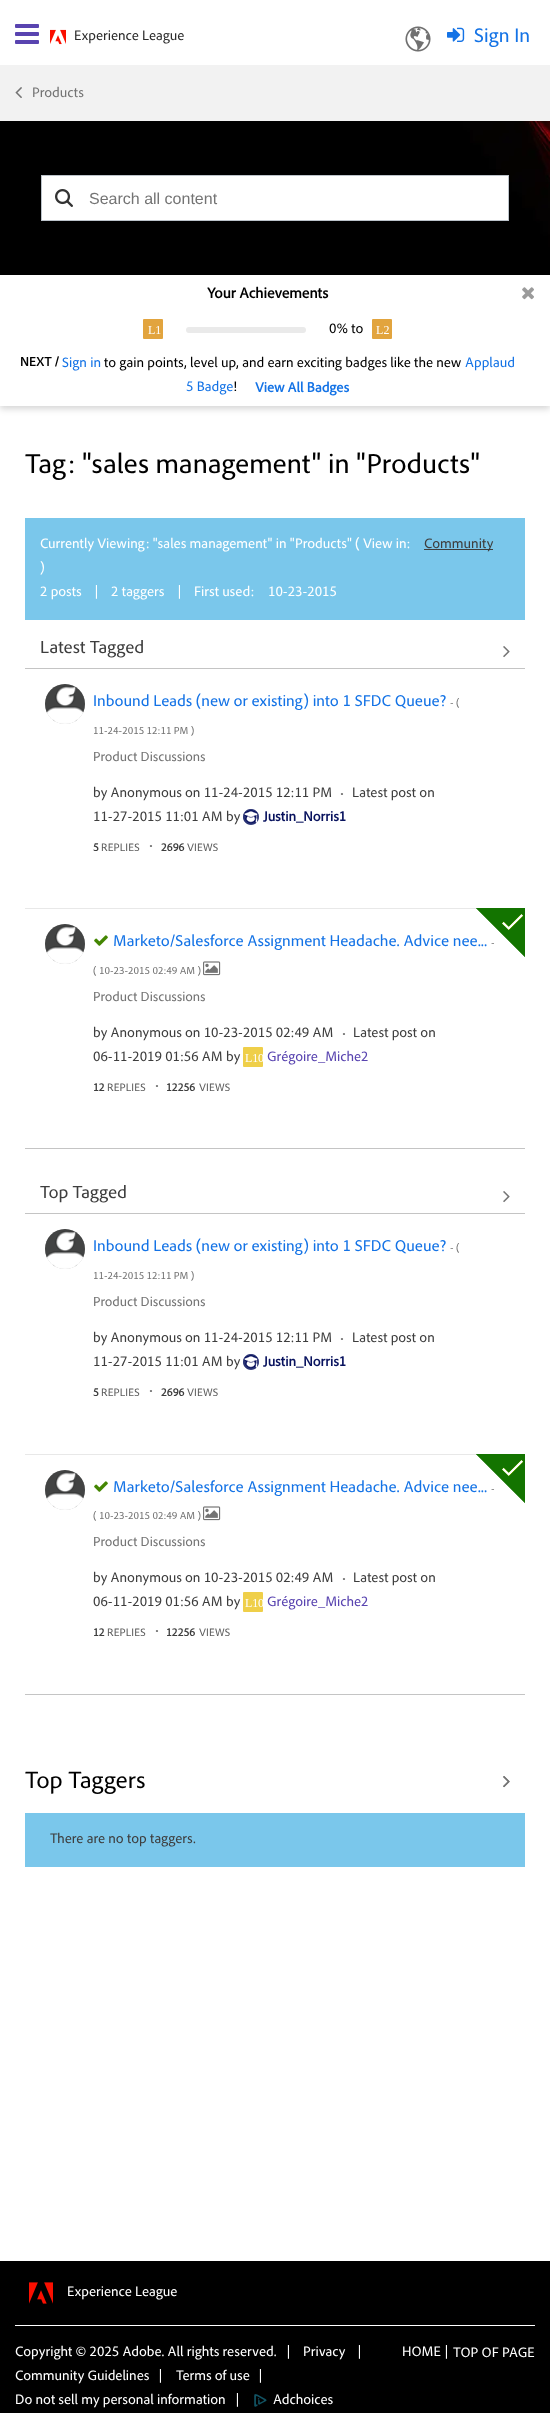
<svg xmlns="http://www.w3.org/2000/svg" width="550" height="2413">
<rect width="100%" height="100%" fill="#fff"/>
<image x="15" y="24" width="24" height="20" href="media/1.png"/>
<image x="50" y="29" width="16" height="16" href="media/2.png"/>
<text x="74" y="40" style="font-family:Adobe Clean;font-size:14px;fill:#2c2c2c">Experience League</text>
<image x="405" y="26" width="26" height="26" href="media/3.png"/>
<image x="447" y="27" width="18" height="15" href="media/4.png"/>
<text x="474" y="42" style="font-family:Adobe Clean;font-size:20px;fill:#1473e6">Sign In</text>
<image x="0" y="121" width="550" height="154" href="media/5.png"/>
<rect y="65" width="550" height="56" fill="#f2f2f2"/>
<image x="15" y="87" width="7" height="11" href="media/6.png"/>
<text x="32" y="97" style="font-family:Adobe Clean;font-size:14px;fill:#747474">Products</text>
<rect x="41.5" y="175.5" width="467" height="45" fill="none" stroke="#bcc3ca"/>
<rect x="42" y="176" width="466" height="44" fill="#fff"/>
<image x="55" y="189" width="18" height="18" href="media/7.png"/>
<text x="89" y="204" style="font-family:Liberation Sans;font-size:16px;fill:#747474">Search all content</text>
<rect y="278" width="550" height="131" fill="#00000029" filter="blur(3px)"/>
<rect y="275" width="550" height="131" fill="#fff"/>
<text x="207" y="298" style="font-family:Adobe Clean;font-size:15px;font-weight:bold;fill:#000">Your Achievements</text>
<image x="522" y="287" width="12" height="13" href="media/8.png"/>
<image x="143" y="319" width="20" height="20" href="media/9.png"/>
<rect x="186" y="327" width="120" height="6" rx="3" fill="#eaeaea"/>
<text x="329" y="333" style="font-family:Adobe Clean;font-size:14px;fill:#000">0% to</text>
<image x="372" y="319" width="20" height="20" href="media/10.png"/>
<text x="20" y="366" style="font-family:Adobe Clean;font-size:13px;font-weight:bold;fill:#000">NEXT /</text>
<text x="62" y="367" style="font-family:Adobe Clean;font-size:14px;fill:#1473e6">Sign in</text>
<text x="104" y="367" style="font-family:Adobe Clean;font-size:14px;fill:#000">to gain points, level up, and earn exciting badges like the new</text>
<text x="465" y="367" style="font-family:Adobe Clean;font-size:14px;fill:#1473e6">Applaud</text>
<text x="186" y="391" style="font-family:Adobe Clean;font-size:14px;fill:#1473e6">5 Badge</text>
<text x="233" y="391" style="font-family:Adobe Clean;font-size:14px;fill:#000">!</text>
<text x="255" y="392" style="font-family:Adobe Clean;font-size:14px;font-weight:bold;fill:#1473e6">View All Badges</text>
<text x="25" y="473" style="font-family:Adobe Clean;font-size:28px;fill:#000">Tag: "sales management" in "Products"</text>
<rect x="25" y="518" width="500" height="102" fill="#7ac7eb"/>
<text x="40" y="548" style="font-family:Adobe Clean;font-size:14px;fill:#fff">Currently Viewing: "sales management" in "Products" ( View in:</text>
<rect x="424" y="549" width="69" height="1" fill="#3e3e3e"/>
<text x="424" y="548" style="font-family:Adobe Clean;font-size:14px;fill:#3e3e3e">Community</text>
<text x="40" y="572" style="font-family:Adobe Clean;font-size:14px;fill:#fff">)</text>
<text x="40" y="596" style="font-family:Adobe Clean;font-size:14px;fill:#fff">2 posts</text>
<text x="95" y="596" style="font-family:Adobe Clean;font-size:14px;fill:#fff">|</text>
<text x="111" y="596" style="font-family:Adobe Clean;font-size:14px;fill:#fff">2 taggers</text>
<text x="178" y="596" style="font-family:Adobe Clean;font-size:14px;fill:#fff">|</text>
<text x="194" y="596" style="font-family:Adobe Clean;font-size:14px;fill:#fff">First used:</text>
<text x="268" y="596" style="font-family:Adobe Clean;font-size:14px;fill:#fff">10-23-2015</text>
<rect x="25" y="668" width="500" height="1" fill="#c4c4c4"/>
<text x="40" y="653" style="font-family:Adobe Clean;font-size:18px;fill:#3e3e3e">Latest Tagged</text>
<image x="503" y="646" width="7" height="12" href="media/11.png"/>
<rect x="25" y="1148" width="500" height="1" fill="#c4c4c4"/>
<rect x="45" y="684" width="40" height="40" rx="20" fill="#c4c4c4" filter="blur(0.5px)"/>
<image x="45" y="684" width="40" height="40" href="media/12.png"/>
<text x="93" y="706" style="font-family:Adobe Clean;font-size:16px;fill:#1473e6">Inbound Leads (new or existing) into 1 SFDC Queue?</text>
<text x="450" y="706" style="font-family:Adobe Clean;font-size:10.4px;fill:#747474">- (</text>
<text x="93" y="734" style="font-family:Adobe Clean;font-size:10.4px;fill:#747474">11-24-2015 12:11 PM )</text>
<text x="93" y="761" style="font-family:Adobe Clean;font-size:13.5px;fill:#747474">Product Discussions</text>
<text x="93" y="797" style="font-family:Adobe Clean;font-size:14px;fill:#3e3e3e">by Anonymous on 11-24-2015 12:11 PM</text>
<text x="340" y="797" style="font-family:Adobe Clean;font-size:12px;fill:#747474">•</text>
<text x="352" y="797" style="font-family:Adobe Clean;font-size:14px;fill:#3e3e3e">Latest post on</text>
<text x="93" y="821" style="font-family:Adobe Clean;font-size:14px;fill:#3e3e3e">11-27-2015 11:01 AM by</text>
<image x="243" y="809" width="16" height="16" href="media/13.png"/>
<text x="263" y="821" style="font-family:Adobe Clean;font-size:14px;font-weight:bold;fill:#08125e">Justin_Norris1</text>
<text x="93" y="851" style="font-family:Adobe Clean;font-size:11px;font-weight:bold;fill:#3e3e3e">5</text>
<text x="101" y="851" style="font-family:Adobe Clean;font-size:11px;fill:#5d5d5d">REPLIES</text>
<text x="149" y="849" style="font-family:Adobe Clean;font-size:12px;fill:#747474">•</text>
<text x="161" y="851" style="font-family:Adobe Clean;font-size:11px;font-weight:bold;fill:#3e3e3e">2696</text>
<text x="187" y="851" style="font-family:Adobe Clean;font-size:11px;fill:#5d5d5d">VIEWS</text>
<rect x="25" y="908" width="452" height="1" fill="#e8e8e8"/>
<rect x="45" y="924" width="40" height="40" rx="20" fill="#c4c4c4" filter="blur(0.5px)"/>
<image x="45" y="924" width="40" height="40" href="media/12.png"/>
<image x="94" y="935" width="14" height="11" href="media/14.png"/>
<text x="113" y="946" style="font-family:Adobe Clean;font-size:16px;fill:#1473e6">Marketo/Salesforce Assignment Headache. Advice nee...</text>
<text x="491" y="946" style="font-family:Adobe Clean;font-size:10.4px;fill:#747474">-</text>
<text x="93" y="974" style="font-family:Adobe Clean;font-size:10.4px;fill:#747474">( 10-23-2015 02:49 AM )</text>
<image x="203" y="961" width="18" height="15" href="media/15.png"/>
<text x="93" y="1001" style="font-family:Adobe Clean;font-size:13.5px;fill:#747474">Product Discussions</text>
<text x="93" y="1037" style="font-family:Adobe Clean;font-size:14px;fill:#3e3e3e">by Anonymous on 10-23-2015 02:49 AM</text>
<text x="342" y="1037" style="font-family:Adobe Clean;font-size:12px;fill:#747474">•</text>
<text x="353" y="1037" style="font-family:Adobe Clean;font-size:14px;fill:#3e3e3e">Latest post on</text>
<text x="93" y="1061" style="font-family:Adobe Clean;font-size:14px;fill:#3e3e3e">06-11-2019 01:56 AM by</text>
<image x="243" y="1047" width="20" height="20" href="media/16.png"/>
<text x="267" y="1061" style="font-family:Adobe Clean;font-size:14px;fill:#5944b0">Grégoire_Miche2</text>
<text x="93" y="1091" style="font-family:Adobe Clean;font-size:11px;font-weight:bold;fill:#3e3e3e">12</text>
<text x="107" y="1091" style="font-family:Adobe Clean;font-size:11px;fill:#5d5d5d">REPLIES</text>
<text x="155" y="1089" style="font-family:Adobe Clean;font-size:12px;fill:#747474">•</text>
<text x="166" y="1091" style="font-family:Adobe Clean;font-size:11px;font-weight:bold;fill:#3e3e3e">12256</text>
<text x="199" y="1091" style="font-family:Adobe Clean;font-size:11px;fill:#5d5d5d">VIEWS</text>
<image x="476" y="908" width="49" height="49" href="media/17.png"/>
<rect x="25" y="1213" width="500" height="1" fill="#c4c4c4"/>
<text x="40" y="1198" style="font-family:Adobe Clean;font-size:18px;fill:#3e3e3e">Top Tagged</text>
<image x="503" y="1191" width="7" height="12" href="media/11.png"/>
<rect x="25" y="1694" width="500" height="1" fill="#c4c4c4"/>
<rect x="45" y="1229" width="40" height="40" rx="20" fill="#c4c4c4" filter="blur(0.5px)"/>
<image x="45" y="1229" width="40" height="40" href="media/12.png"/>
<text x="93" y="1251" style="font-family:Adobe Clean;font-size:16px;fill:#1473e6">Inbound Leads (new or existing) into 1 SFDC Queue?</text>
<text x="450" y="1251" style="font-family:Adobe Clean;font-size:10.4px;fill:#747474">- (</text>
<text x="93" y="1279" style="font-family:Adobe Clean;font-size:10.4px;fill:#747474">11-24-2015 12:11 PM )</text>
<text x="93" y="1306" style="font-family:Adobe Clean;font-size:13.5px;fill:#747474">Product Discussions</text>
<text x="93" y="1342" style="font-family:Adobe Clean;font-size:14px;fill:#3e3e3e">by Anonymous on 11-24-2015 12:11 PM</text>
<text x="340" y="1342" style="font-family:Adobe Clean;font-size:12px;fill:#747474">•</text>
<text x="352" y="1342" style="font-family:Adobe Clean;font-size:14px;fill:#3e3e3e">Latest post on</text>
<text x="93" y="1366" style="font-family:Adobe Clean;font-size:14px;fill:#3e3e3e">11-27-2015 11:01 AM by</text>
<image x="243" y="1354" width="16" height="16" href="media/13.png"/>
<text x="263" y="1366" style="font-family:Adobe Clean;font-size:14px;font-weight:bold;fill:#08125e">Justin_Norris1</text>
<text x="93" y="1396" style="font-family:Adobe Clean;font-size:11px;font-weight:bold;fill:#3e3e3e">5</text>
<text x="101" y="1396" style="font-family:Adobe Clean;font-size:11px;fill:#5d5d5d">REPLIES</text>
<text x="149" y="1394" style="font-family:Adobe Clean;font-size:12px;fill:#747474">•</text>
<text x="161" y="1396" style="font-family:Adobe Clean;font-size:11px;font-weight:bold;fill:#3e3e3e">2696</text>
<text x="187" y="1396" style="font-family:Adobe Clean;font-size:11px;fill:#5d5d5d">VIEWS</text>
<rect x="25" y="1454" width="452" height="1" fill="#e8e8e8"/>
<rect x="45" y="1470" width="40" height="40" rx="20" fill="#c4c4c4" filter="blur(0.5px)"/>
<image x="45" y="1470" width="40" height="40" href="media/12.png"/>
<image x="94" y="1481" width="14" height="11" href="media/14.png"/>
<text x="113" y="1492" style="font-family:Adobe Clean;font-size:16px;fill:#1473e6">Marketo/Salesforce Assignment Headache. Advice nee...</text>
<text x="491" y="1492" style="font-family:Adobe Clean;font-size:10.4px;fill:#747474">-</text>
<text x="93" y="1519" style="font-family:Adobe Clean;font-size:10.4px;fill:#747474">( 10-23-2015 02:49 AM )</text>
<image x="203" y="1506" width="18" height="15" href="media/15.png"/>
<text x="93" y="1546" style="font-family:Adobe Clean;font-size:13.5px;fill:#747474">Product Discussions</text>
<text x="93" y="1582" style="font-family:Adobe Clean;font-size:14px;fill:#3e3e3e">by Anonymous on 10-23-2015 02:49 AM</text>
<text x="342" y="1582" style="font-family:Adobe Clean;font-size:12px;fill:#747474">•</text>
<text x="353" y="1582" style="font-family:Adobe Clean;font-size:14px;fill:#3e3e3e">Latest post on</text>
<text x="93" y="1606" style="font-family:Adobe Clean;font-size:14px;fill:#3e3e3e">06-11-2019 01:56 AM by</text>
<image x="243" y="1592" width="20" height="20" href="media/16.png"/>
<text x="267" y="1606" style="font-family:Adobe Clean;font-size:14px;fill:#5944b0">Grégoire_Miche2</text>
<text x="93" y="1636" style="font-family:Adobe Clean;font-size:11px;font-weight:bold;fill:#3e3e3e">12</text>
<text x="107" y="1636" style="font-family:Adobe Clean;font-size:11px;fill:#5d5d5d">REPLIES</text>
<text x="155" y="1634" style="font-family:Adobe Clean;font-size:12px;fill:#747474">•</text>
<text x="166" y="1636" style="font-family:Adobe Clean;font-size:11px;font-weight:bold;fill:#3e3e3e">12256</text>
<text x="199" y="1636" style="font-family:Adobe Clean;font-size:11px;fill:#5d5d5d">VIEWS</text>
<image x="476" y="1454" width="49" height="49" href="media/17.png"/>
<text x="25" y="1788" style="font-family:Adobe Clean;font-size:24px;fill:#000">Top Taggers</text>
<image x="503" y="1776" width="7" height="12" href="media/11.png"/>
<image x="503" y="1776" width="7" height="12" href="media/18.png"/>
<rect x="25" y="1813" width="500" height="54" fill="#7ac7eb"/>
<text x="50" y="1843" style="font-family:Adobe Clean;font-size:14px;fill:#3e3e3e">There are no top taggers.</text>
<rect y="2261" width="550" height="152" fill="#000"/>
<image x="29" y="2282" width="24" height="22" href="media/19.png"/>
<text x="67" y="2296" style="font-family:Adobe Clean;font-size:14px;fill:#fff">Experience League</text>
<rect x="15" y="2325" width="520" height="1" fill="#fff"/>
<text x="15" y="2356" style="font-family:Adobe Clean;font-size:14px;fill:#fff">Copyright © 2025 Adobe. All rights reserved.</text>
<text x="287" y="2356" style="font-family:Adobe Clean;font-size:14px;fill:#fff">|</text>
<text x="303" y="2356" style="font-family:Adobe Clean;font-size:14px;fill:#fff">Privacy</text>
<text x="358" y="2356" style="font-family:Adobe Clean;font-size:14px;fill:#fff">|</text>
<text x="15" y="2380" style="font-family:Adobe Clean;font-size:14px;fill:#fff">Community Guidelines</text>
<text x="159" y="2380" style="font-family:Adobe Clean;font-size:14px;fill:#fff">|</text>
<text x="176" y="2380" style="font-family:Adobe Clean;font-size:14px;fill:#fff">Terms of use</text>
<text x="259" y="2380" style="font-family:Adobe Clean;font-size:14px;fill:#fff">|</text>
<text x="15" y="2404" style="font-family:Adobe Clean;font-size:14px;fill:#fff">Do not sell my personal information</text>
<text x="236" y="2404" style="font-family:Adobe Clean;font-size:14px;fill:#fff">|</text>
<image x="254" y="2394" width="13" height="13" href="media/20.png"/>
<text x="273" y="2404" style="font-family:Adobe Clean;font-size:14px;fill:#fff">Adchoices</text>
<text x="402" y="2356" style="font-family:Adobe Clean;font-size:14px;fill:#fff">HOME</text>
<text x="445" y="2356" style="font-family:Adobe Clean;font-size:14px;fill:#fff">|</text>
<text x="453" y="2357" style="font-family:Adobe Clean;font-size:14px;fill:#fff">TOP OF PAGE</text>
</svg>
